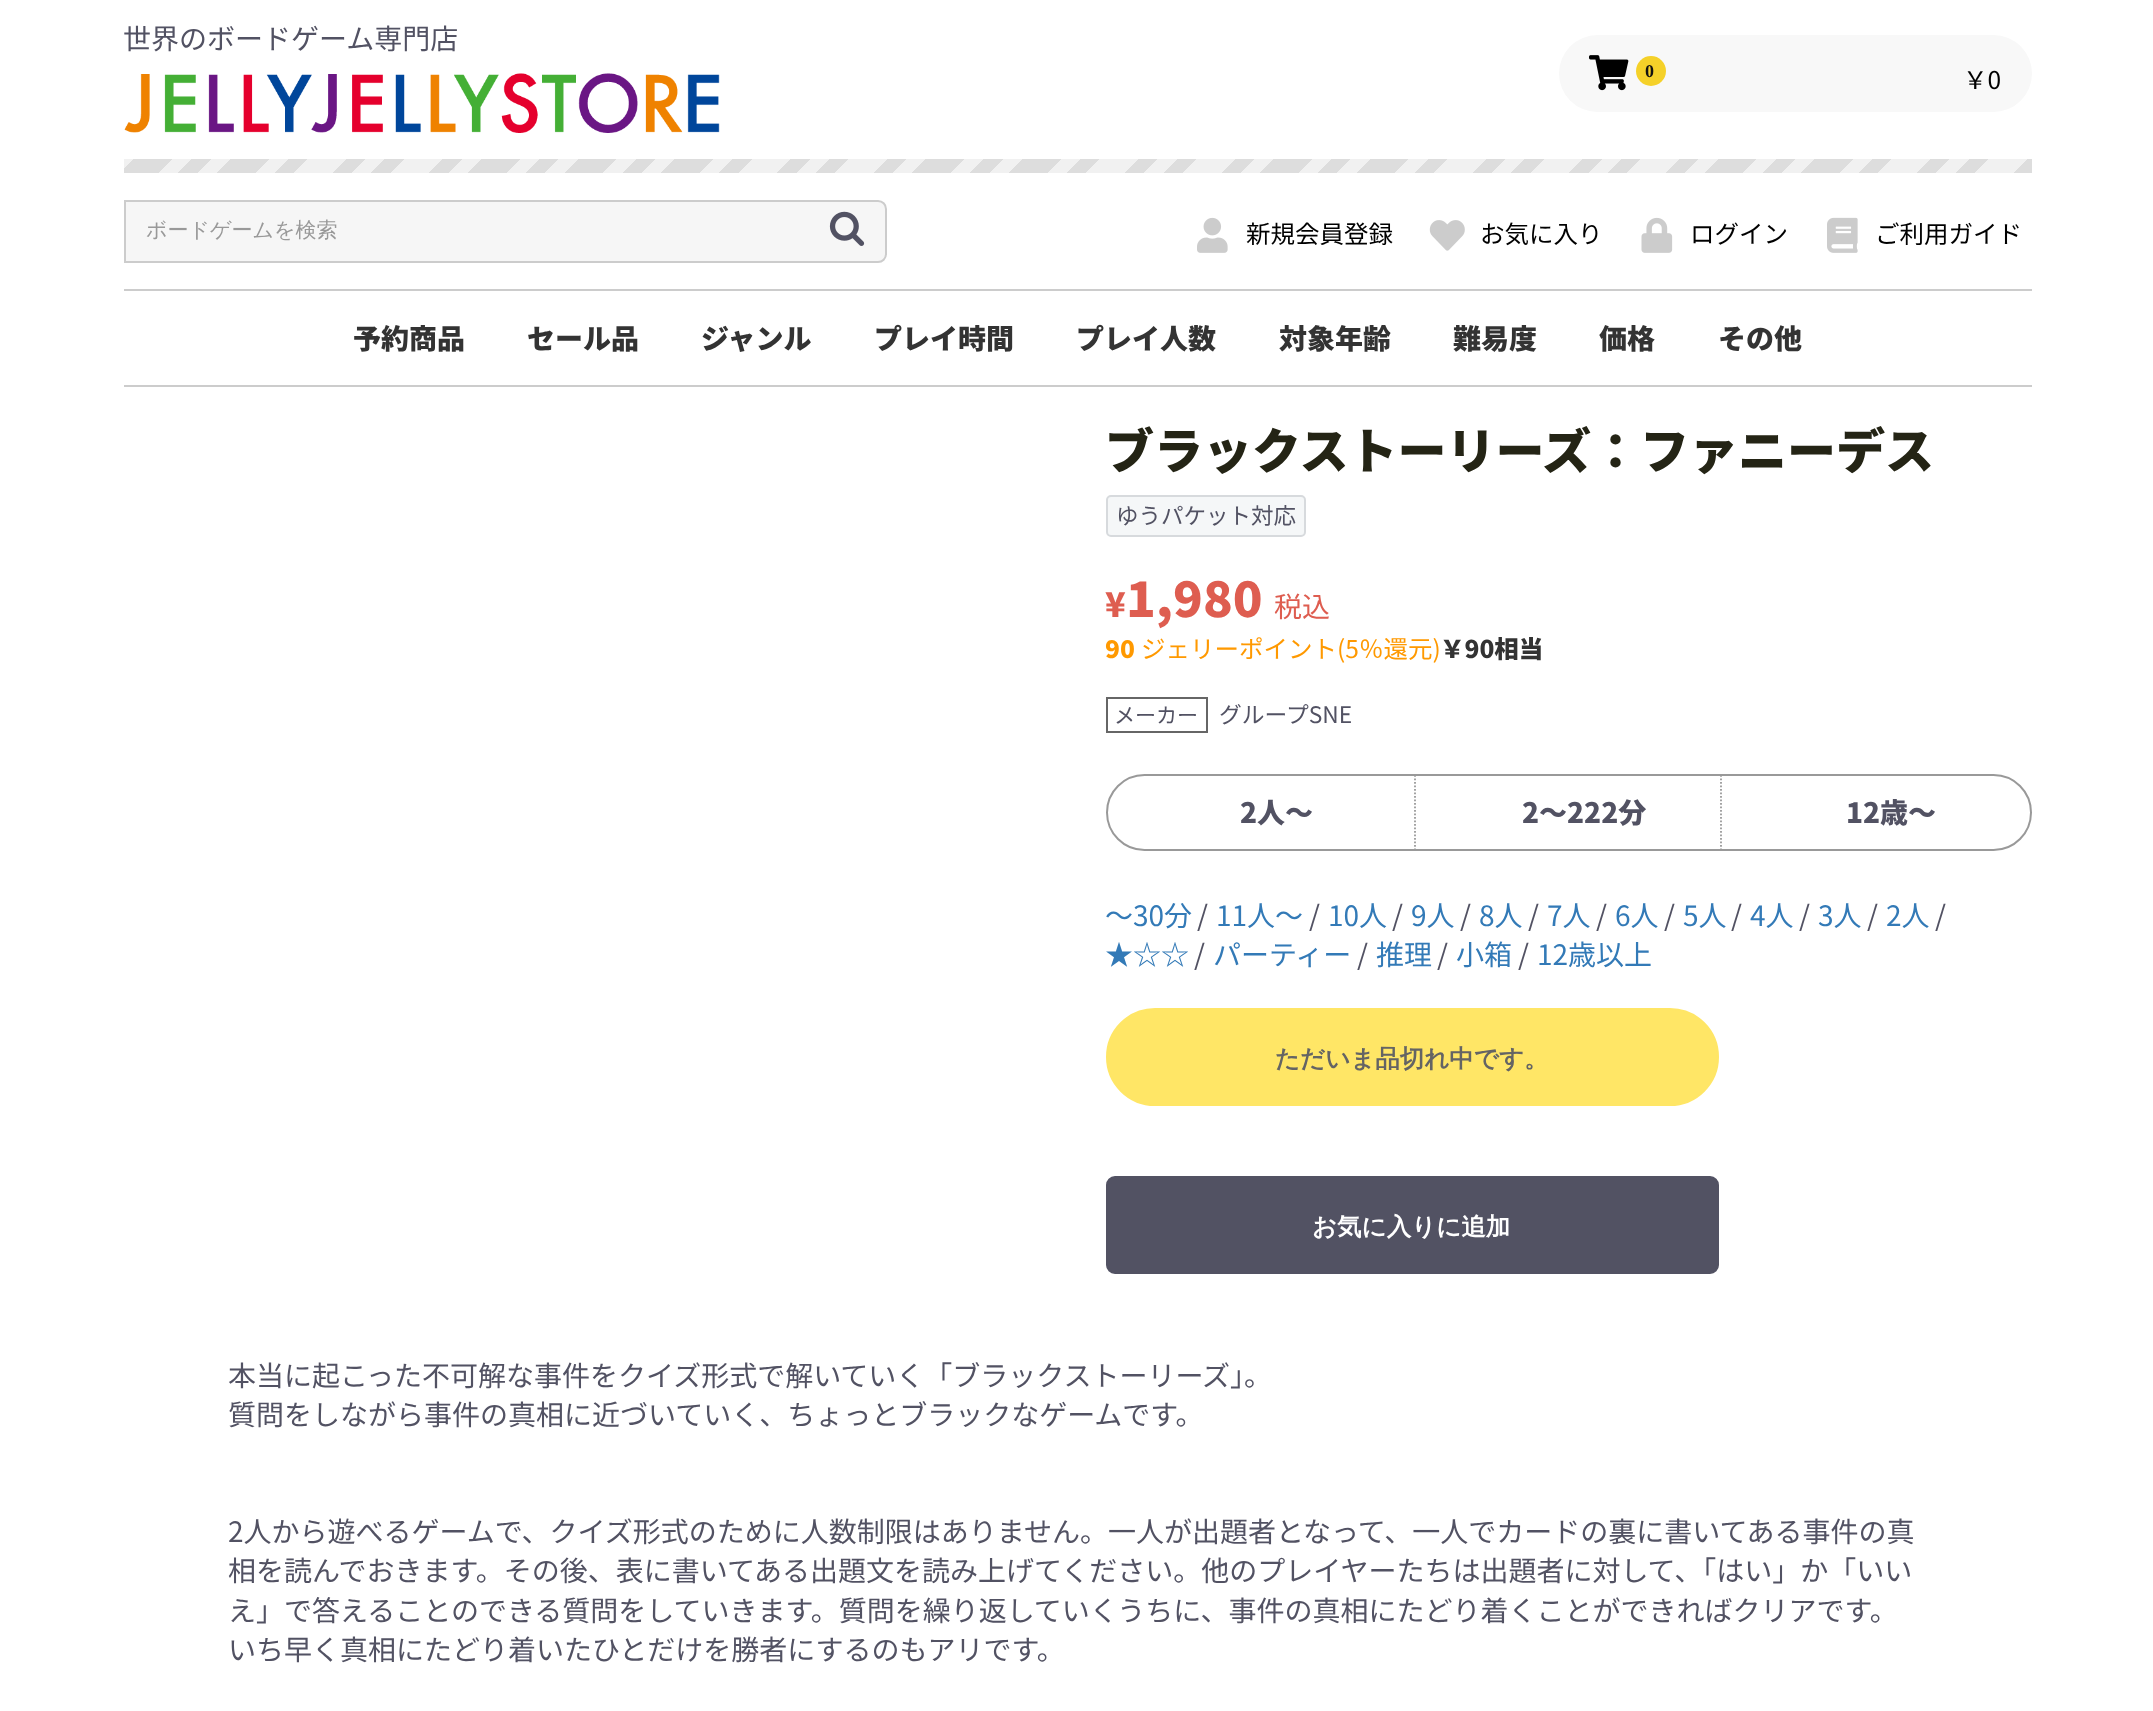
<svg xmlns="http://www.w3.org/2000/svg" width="2153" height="1711">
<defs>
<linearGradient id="g1" gradientUnits="userSpaceOnUse" x1="1558" y1="647" x2="593" y2="-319"><stop offset="0" stop-color="#ddd"/><stop offset="0.01" stop-color="#ddd"/><stop offset="0.01" stop-color="#f1f1f1"/><stop offset="0.03" stop-color="#f1f1f1"/><stop offset="0.03" stop-color="#ddd"/><stop offset="0.04" stop-color="#ddd"/><stop offset="0.04" stop-color="#f1f1f1"/><stop offset="0.05" stop-color="#f1f1f1"/><stop offset="0.05" stop-color="#ddd"/><stop offset="0.06" stop-color="#ddd"/><stop offset="0.06" stop-color="#f1f1f1"/><stop offset="0.08" stop-color="#f1f1f1"/><stop offset="0.08" stop-color="#ddd"/><stop offset="0.09" stop-color="#ddd"/><stop offset="0.09" stop-color="#f1f1f1"/><stop offset="0.1" stop-color="#f1f1f1"/><stop offset="0.1" stop-color="#ddd"/><stop offset="0.12" stop-color="#ddd"/><stop offset="0.12" stop-color="#f1f1f1"/><stop offset="0.13" stop-color="#f1f1f1"/><stop offset="0.13" stop-color="#ddd"/><stop offset="0.14" stop-color="#ddd"/><stop offset="0.14" stop-color="#f1f1f1"/><stop offset="0.15" stop-color="#f1f1f1"/><stop offset="0.15" stop-color="#ddd"/><stop offset="0.17" stop-color="#ddd"/><stop offset="0.17" stop-color="#f1f1f1"/><stop offset="0.18" stop-color="#f1f1f1"/><stop offset="0.18" stop-color="#ddd"/><stop offset="0.19" stop-color="#ddd"/><stop offset="0.19" stop-color="#f1f1f1"/><stop offset="0.21" stop-color="#f1f1f1"/><stop offset="0.21" stop-color="#ddd"/><stop offset="0.22" stop-color="#ddd"/><stop offset="0.22" stop-color="#f1f1f1"/><stop offset="0.23" stop-color="#f1f1f1"/><stop offset="0.23" stop-color="#ddd"/><stop offset="0.24" stop-color="#ddd"/><stop offset="0.24" stop-color="#f1f1f1"/><stop offset="0.26" stop-color="#f1f1f1"/><stop offset="0.26" stop-color="#ddd"/><stop offset="0.27" stop-color="#ddd"/><stop offset="0.27" stop-color="#f1f1f1"/><stop offset="0.28" stop-color="#f1f1f1"/><stop offset="0.28" stop-color="#ddd"/><stop offset="0.29" stop-color="#ddd"/><stop offset="0.29" stop-color="#f1f1f1"/><stop offset="0.31" stop-color="#f1f1f1"/><stop offset="0.31" stop-color="#ddd"/><stop offset="0.32" stop-color="#ddd"/><stop offset="0.32" stop-color="#f1f1f1"/><stop offset="0.33" stop-color="#f1f1f1"/><stop offset="0.33" stop-color="#ddd"/><stop offset="0.35" stop-color="#ddd"/><stop offset="0.35" stop-color="#f1f1f1"/><stop offset="0.36" stop-color="#f1f1f1"/><stop offset="0.36" stop-color="#ddd"/><stop offset="0.37" stop-color="#ddd"/><stop offset="0.37" stop-color="#f1f1f1"/><stop offset="0.38" stop-color="#f1f1f1"/><stop offset="0.38" stop-color="#ddd"/><stop offset="0.4" stop-color="#ddd"/><stop offset="0.4" stop-color="#f1f1f1"/><stop offset="0.41" stop-color="#f1f1f1"/><stop offset="0.41" stop-color="#ddd"/><stop offset="0.42" stop-color="#ddd"/><stop offset="0.42" stop-color="#f1f1f1"/><stop offset="0.44" stop-color="#f1f1f1"/><stop offset="0.44" stop-color="#ddd"/><stop offset="0.45" stop-color="#ddd"/><stop offset="0.45" stop-color="#f1f1f1"/><stop offset="0.46" stop-color="#f1f1f1"/><stop offset="0.46" stop-color="#ddd"/><stop offset="0.47" stop-color="#ddd"/><stop offset="0.47" stop-color="#f1f1f1"/><stop offset="0.49" stop-color="#f1f1f1"/><stop offset="0.49" stop-color="#ddd"/><stop offset="0.5" stop-color="#ddd"/><stop offset="0.5" stop-color="#f1f1f1"/><stop offset="0.51" stop-color="#f1f1f1"/><stop offset="0.51" stop-color="#ddd"/><stop offset="0.53" stop-color="#ddd"/><stop offset="0.53" stop-color="#f1f1f1"/><stop offset="0.54" stop-color="#f1f1f1"/><stop offset="0.54" stop-color="#ddd"/><stop offset="0.55" stop-color="#ddd"/><stop offset="0.55" stop-color="#f1f1f1"/><stop offset="0.56" stop-color="#f1f1f1"/><stop offset="0.56" stop-color="#ddd"/><stop offset="0.58" stop-color="#ddd"/><stop offset="0.58" stop-color="#f1f1f1"/><stop offset="0.59" stop-color="#f1f1f1"/><stop offset="0.59" stop-color="#ddd"/><stop offset="0.6" stop-color="#ddd"/><stop offset="0.6" stop-color="#f1f1f1"/><stop offset="0.62" stop-color="#f1f1f1"/><stop offset="0.62" stop-color="#ddd"/><stop offset="0.63" stop-color="#ddd"/><stop offset="0.63" stop-color="#f1f1f1"/><stop offset="0.64" stop-color="#f1f1f1"/><stop offset="0.64" stop-color="#ddd"/><stop offset="0.65" stop-color="#ddd"/><stop offset="0.65" stop-color="#f1f1f1"/><stop offset="0.67" stop-color="#f1f1f1"/><stop offset="0.67" stop-color="#ddd"/><stop offset="0.68" stop-color="#ddd"/><stop offset="0.68" stop-color="#f1f1f1"/><stop offset="0.69" stop-color="#f1f1f1"/><stop offset="0.69" stop-color="#ddd"/><stop offset="0.71" stop-color="#ddd"/><stop offset="0.71" stop-color="#f1f1f1"/><stop offset="0.72" stop-color="#f1f1f1"/><stop offset="0.72" stop-color="#ddd"/><stop offset="0.73" stop-color="#ddd"/><stop offset="0.73" stop-color="#f1f1f1"/><stop offset="0.74" stop-color="#f1f1f1"/><stop offset="0.74" stop-color="#ddd"/><stop offset="0.76" stop-color="#ddd"/><stop offset="0.76" stop-color="#f1f1f1"/><stop offset="0.77" stop-color="#f1f1f1"/><stop offset="0.77" stop-color="#ddd"/><stop offset="0.78" stop-color="#ddd"/><stop offset="0.78" stop-color="#f1f1f1"/><stop offset="0.79" stop-color="#f1f1f1"/><stop offset="0.79" stop-color="#ddd"/><stop offset="0.81" stop-color="#ddd"/><stop offset="0.81" stop-color="#f1f1f1"/><stop offset="0.82" stop-color="#f1f1f1"/><stop offset="0.82" stop-color="#ddd"/><stop offset="0.83" stop-color="#ddd"/><stop offset="0.83" stop-color="#f1f1f1"/><stop offset="0.85" stop-color="#f1f1f1"/><stop offset="0.85" stop-color="#ddd"/><stop offset="0.86" stop-color="#ddd"/><stop offset="0.86" stop-color="#f1f1f1"/><stop offset="0.87" stop-color="#f1f1f1"/><stop offset="0.87" stop-color="#ddd"/><stop offset="0.88" stop-color="#ddd"/><stop offset="0.88" stop-color="#f1f1f1"/><stop offset="0.9" stop-color="#f1f1f1"/><stop offset="0.9" stop-color="#ddd"/><stop offset="0.91" stop-color="#ddd"/><stop offset="0.91" stop-color="#f1f1f1"/><stop offset="0.92" stop-color="#f1f1f1"/><stop offset="0.92" stop-color="#ddd"/><stop offset="0.94" stop-color="#ddd"/><stop offset="0.94" stop-color="#f1f1f1"/><stop offset="0.95" stop-color="#f1f1f1"/><stop offset="0.95" stop-color="#ddd"/><stop offset="0.96" stop-color="#ddd"/><stop offset="0.96" stop-color="#f1f1f1"/><stop offset="0.97" stop-color="#f1f1f1"/><stop offset="0.97" stop-color="#ddd"/><stop offset="0.99" stop-color="#ddd"/><stop offset="0.99" stop-color="#f1f1f1"/><stop offset="1" stop-color="#f1f1f1"/></linearGradient>
</defs>
<rect width="100%" height="100%" fill="#fff"/>
<text x="123" y="49" style="font-family:Noto Sans JP;font-size:28px;fill:#525263">世界のボードゲーム専門店</text>
<image x="124" y="73" width="596" height="60" href="media/1.png"/>
<rect x="1559" y="35" width="473" height="77" rx="38.5" fill="#f8f8f8"/>
<image x="1589" y="55" width="40" height="36" href="media/2.png"/>
<circle cx="1651" cy="71" r="15" fill="#f5d129"/>
<text x="1645" y="77" style="font-family:Liberation Serif;font-size:18px;font-weight:bold;fill:#111">0</text>
<text x="1963" y="89" style="font-family:Noto Sans JP;font-size:24.5px;fill:#000">￥0</text>
<rect x="124" y="159" width="1908" height="14" fill="url(#g1)"/>
<path d="M125 201h753c4.5 0 8 3.5 8 8v45c0 4.5-3.5 8-8 8h-753z" fill="#f6f6f6" stroke="#ccc" stroke-width="2"/>
<text x="146" y="237" style="font-family:WenQuanYi Zen Hei;font-size:21px;font-weight:500;fill:#999">ボードゲームを検索</text>
<image x="829" y="211" width="36" height="35" href="media/3.png"/>
<image x="1197" y="217" width="31" height="36" href="media/4.png"/>
<text x="1246" y="243" style="font-family:Noto Sans JP;font-size:24.5px;fill:#000">新規会員登録</text>
<image x="1429" y="220" width="36" height="31" href="media/5.png"/>
<text x="1480" y="243" style="font-family:Noto Sans JP;font-size:24.5px;fill:#000">お気に入り</text>
<image x="1641" y="217" width="32" height="36" href="media/6.png"/>
<text x="1690" y="243" style="font-family:Noto Sans JP;font-size:24.5px;fill:#000">ログイン</text>
<image x="1827" y="217" width="31" height="36" href="media/7.png"/>
<text x="1875" y="243" style="font-family:Noto Sans JP;font-size:24.5px;fill:#000">ご利用ガイド</text>
<rect x="124" y="289" width="1908" height="2" fill="#ccc"/>
<rect x="124" y="385" width="1908" height="2" fill="#ccc"/>
<text x="353" y="349" style="font-family:Noto Sans JP;font-size:28px;font-weight:900;fill:#333">予約商品</text>
<text x="527" y="349" style="font-family:Noto Sans JP;font-size:28px;font-weight:900;fill:#333">セール品</text>
<text x="701" y="349" style="font-family:Noto Sans JP;font-size:28px;font-weight:900;fill:#333">ジャンル</text>
<text x="874" y="349" style="font-family:Noto Sans JP;font-size:28px;font-weight:900;fill:#333">プレイ時間</text>
<text x="1076" y="349" style="font-family:Noto Sans JP;font-size:28px;font-weight:900;fill:#333">プレイ人数</text>
<text x="1279" y="349" style="font-family:Noto Sans JP;font-size:28px;font-weight:900;fill:#333">対象年齢</text>
<text x="1453" y="349" style="font-family:Noto Sans JP;font-size:28px;font-weight:900;fill:#333">難易度</text>
<text x="1599" y="349" style="font-family:Noto Sans JP;font-size:28px;font-weight:900;fill:#333">価格</text>
<text x="1718" y="349" style="font-family:Noto Sans JP;font-size:28px;font-weight:900;fill:#333">その他</text>
<text x="1105" y="469" style="font-family:Noto Sans JP;font-size:49px;font-weight:900;fill:#242415">ブラックストーリーズ：ファニーデス</text>
<rect x="1107" y="496" width="198" height="40" rx="4" fill="#f5f7f8" stroke="#d7dadd" stroke-width="2"/>
<text x="1116" y="524" style="font-family:Noto Sans JP;font-size:22.5px;fill:#525263">ゆうパケット対応</text>
<text x="1105" y="617" style="font-family:Noto Sans JP;font-size:34px;font-weight:900;fill:#de5d50">¥</text>
<text x="1126" y="617" style="font-family:Noto Sans JP;font-size:49px;font-weight:900;fill:#de5d50">1,980</text>
<text x="1274" y="617" style="font-family:Noto Sans JP;font-size:28px;fill:#de5d50">税込</text>
<text x="1105" y="658" style="font-family:Noto Sans JP;font-size:24.5px;font-weight:900;fill:#f90">90</text>
<text x="1141" y="658" style="font-family:Noto Sans JP;font-size:24.5px;fill:#f90">ジェリーポイント(5％還元)</text>
<text x="1440" y="658" style="font-family:Noto Sans JP;font-size:24.5px;font-weight:900;fill:#333">￥90相当</text>
<rect x="1107" y="698" width="100" height="34" fill="none" stroke="#666" stroke-width="2"/>
<text x="1114" y="723" style="font-family:Noto Sans JP;font-size:21px;fill:#525263">メーカー</text>
<text x="1219" y="723" style="font-family:Noto Sans JP;font-size:22.75px;fill:#525263">グループSNE</text>
<rect x="1107" y="775" width="924" height="75" rx="37.5" fill="none" stroke="#999" stroke-width="2"/>
<text x="1240" y="823" style="font-family:Noto Sans JP;font-size:28px;font-weight:900;fill:#525263">2人～</text>
<path d="M1721 775v74" fill="none" stroke="#999" stroke-width="1.8" stroke-dasharray="1.75 1.75"/>
<path d="M1415 775v74" fill="none" stroke="#999" stroke-width="1.8" stroke-dasharray="1.75 1.75"/>
<text x="1522" y="823" style="font-family:Noto Sans JP;font-size:28px;font-weight:900;fill:#525263">2～222分</text>
<text x="1846" y="823" style="font-family:Noto Sans JP;font-size:28px;font-weight:900;fill:#525263">12歳〜</text>
<text x="1105" y="926" style="font-family:Noto Sans JP;font-size:28px;fill:#337ab7">〜30分</text>
<text x="1197" y="926" style="font-family:Noto Sans JP;font-size:28px;fill:#525263">/</text>
<text x="1216" y="926" style="font-family:Noto Sans JP;font-size:28px;fill:#337ab7">11人〜</text>
<text x="1309" y="926" style="font-family:Noto Sans JP;font-size:28px;fill:#525263">/</text>
<text x="1328" y="926" style="font-family:Noto Sans JP;font-size:28px;fill:#337ab7">10人</text>
<text x="1392" y="926" style="font-family:Noto Sans JP;font-size:28px;fill:#525263">/</text>
<text x="1411" y="926" style="font-family:Noto Sans JP;font-size:28px;fill:#337ab7">9人</text>
<text x="1460" y="926" style="font-family:Noto Sans JP;font-size:28px;fill:#525263">/</text>
<text x="1479" y="926" style="font-family:Noto Sans JP;font-size:28px;fill:#337ab7">8人</text>
<text x="1528" y="926" style="font-family:Noto Sans JP;font-size:28px;fill:#525263">/</text>
<text x="1547" y="926" style="font-family:Noto Sans JP;font-size:28px;fill:#337ab7">7人</text>
<text x="1596" y="926" style="font-family:Noto Sans JP;font-size:28px;fill:#525263">/</text>
<text x="1615" y="926" style="font-family:Noto Sans JP;font-size:28px;fill:#337ab7">6人</text>
<text x="1664" y="926" style="font-family:Noto Sans JP;font-size:28px;fill:#525263">/</text>
<text x="1683" y="926" style="font-family:Noto Sans JP;font-size:28px;fill:#337ab7">5人</text>
<text x="1731" y="926" style="font-family:Noto Sans JP;font-size:28px;fill:#525263">/</text>
<text x="1750" y="926" style="font-family:Noto Sans JP;font-size:28px;fill:#337ab7">4人</text>
<text x="1799" y="926" style="font-family:Noto Sans JP;font-size:28px;fill:#525263">/</text>
<text x="1818" y="926" style="font-family:Noto Sans JP;font-size:28px;fill:#337ab7">3人</text>
<text x="1867" y="926" style="font-family:Noto Sans JP;font-size:28px;fill:#525263">/</text>
<text x="1886" y="926" style="font-family:Noto Sans JP;font-size:28px;fill:#337ab7">2人</text>
<text x="1935" y="926" style="font-family:Noto Sans JP;font-size:28px;fill:#525263">/</text>
<text x="1105" y="965" style="font-family:Noto Sans JP;font-size:28px;fill:#337ab7">★☆☆</text>
<text x="1194" y="965" style="font-family:Noto Sans JP;font-size:28px;fill:#525263">/</text>
<text x="1213" y="965" style="font-family:Noto Sans JP;font-size:28px;fill:#337ab7">パーティー</text>
<text x="1357" y="965" style="font-family:Noto Sans JP;font-size:28px;fill:#525263">/</text>
<text x="1376" y="965" style="font-family:Noto Sans JP;font-size:28px;fill:#337ab7">推理</text>
<text x="1437" y="965" style="font-family:Noto Sans JP;font-size:28px;fill:#525263">/</text>
<text x="1456" y="965" style="font-family:Noto Sans JP;font-size:28px;fill:#337ab7">小箱</text>
<text x="1518" y="965" style="font-family:Noto Sans JP;font-size:28px;fill:#525263">/</text>
<text x="1537" y="965" style="font-family:Noto Sans JP;font-size:28px;fill:#337ab7">12歳以上</text>
<rect x="1107" y="1009" width="611" height="96" rx="48" fill="#ffe666" stroke="#ffe666" stroke-width="2"/>
<text x="1275" y="1067" style="font-family:WenQuanYi Zen Hei;font-size:24.5px;font-weight:bold;fill:#646464">ただいま品切れ中です。</text>
<rect x="1107" y="1177" width="611" height="96" rx="8" fill="#525263" stroke="#525263" stroke-width="2"/>
<text x="1312" y="1235" style="font-family:WenQuanYi Zen Hei;font-size:24.5px;font-weight:bold;fill:#fff">お気に入りに追加</text>
<text x="228" y="1386" style="font-family:Noto Sans JP;font-size:28px;fill:#525263">本当に起こった不可解な事件をクイズ形式で解いていく「ブラックストーリーズ」。</text>
<text x="228" y="1425" style="font-family:Noto Sans JP;font-size:28px;fill:#525263">質問をしながら事件の真相に近づいていく、ちょっとブラックなゲームです。</text>
<text x="228" y="1542" style="font-family:Noto Sans JP;font-size:28px;fill:#525263">2人から遊べるゲームで、クイズ形式のために人数制限はありません。一人が出題者となって、一人でカードの裏に書いてある事件の真</text>
<text x="228" y="1581" style="font-family:Noto Sans JP;font-size:28px;fill:#525263">相を読んでおきます。その後、表に書いてある出題文を読み上げてください。他のプレイヤーたちは出題者に対して、「はい」か「いい</text>
<text x="228" y="1621" style="font-family:Noto Sans JP;font-size:28px;fill:#525263">え」で答えることのできる質問をしていきます。質問を繰り返していくうちに、事件の真相にたどり着くことができればクリアです。</text>
<text x="228" y="1660" style="font-family:Noto Sans JP;font-size:28px;fill:#525263">いち早く真相にたどり着いたひとだけを勝者にするのもアリです。</text>
</svg>
